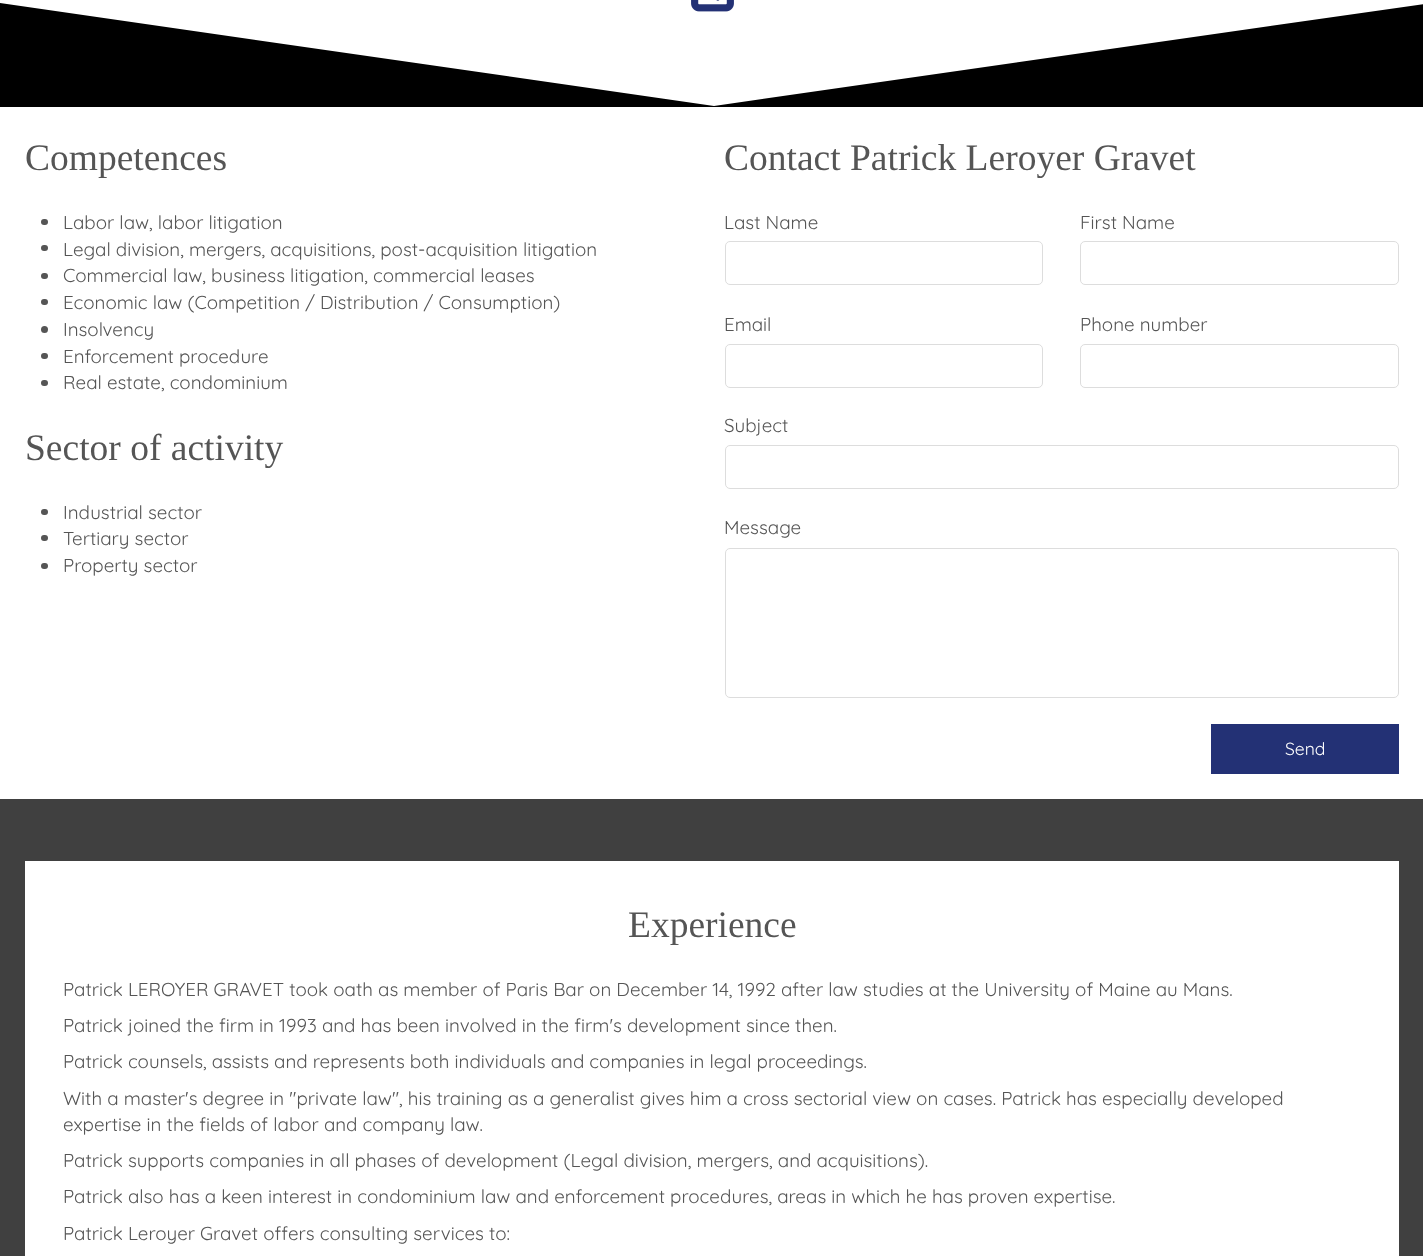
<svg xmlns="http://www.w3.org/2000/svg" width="1423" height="1256">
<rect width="100%" height="100%" fill="#fff"/>
<path d="M714 106l-714-103v104h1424v-103z" fill="#000"/>
<image x="691" y="0" width="43" height="12" href="media/1.png"/>
<text x="25" y="170" style="font-family:Liberation Serif;font-size:37.5px;fill:#555">Competences</text>
<rect x="41" y="219" width="7" height="6" rx="3" fill="#555"/>
<text x="63" y="229" style="font-family:Quicksand;font-size:18.75px;fill:#555">Labor law, labor litigation</text>
<rect x="41" y="245" width="7" height="6" rx="3" fill="#555"/>
<text x="63" y="256" style="font-family:Quicksand;font-size:18.75px;fill:#555">Legal division, mergers, acquisitions, post-acquisition litigation</text>
<rect x="41" y="273" width="7" height="6" rx="3" fill="#555"/>
<text x="63" y="282" style="font-family:Quicksand;font-size:18.75px;fill:#555">Commercial law, business litigation, commercial leases</text>
<rect x="41" y="299" width="7" height="6" rx="3" fill="#555"/>
<text x="63" y="309" style="font-family:Quicksand;font-size:18.75px;fill:#555">Economic law (Competition / Distribution / Consumption)</text>
<circle cx="44.5" cy="329.5" r="3.5" fill="#555"/>
<text x="63" y="336" style="font-family:Quicksand;font-size:18.75px;fill:#555">Insolvency</text>
<rect x="41" y="353" width="7" height="6" rx="3" fill="#555"/>
<text x="63" y="363" style="font-family:Quicksand;font-size:18.75px;fill:#555">Enforcement procedure</text>
<rect x="41" y="380" width="7" height="6" rx="3" fill="#555"/>
<text x="63" y="389" style="font-family:Quicksand;font-size:18.75px;fill:#555">Real estate, condominium</text>
<text x="25" y="460" style="font-family:Liberation Serif;font-size:37.5px;fill:#555">Sector of activity</text>
<rect x="41" y="509" width="7" height="6" rx="3" fill="#555"/>
<text x="63" y="519" style="font-family:Quicksand;font-size:18.75px;fill:#555">Industrial sector</text>
<rect x="41" y="535" width="7" height="6" rx="3" fill="#555"/>
<text x="63" y="545" style="font-family:Quicksand;font-size:18.75px;fill:#555">Tertiary sector</text>
<rect x="41" y="563" width="7" height="6" rx="3" fill="#555"/>
<text x="63" y="572" style="font-family:Quicksand;font-size:18.75px;fill:#555">Property sector</text>
<text x="724" y="170" style="font-family:Liberation Serif;font-size:37.5px;fill:#555">Contact Patrick Leroyer Gravet</text>
<text x="724" y="229" style="font-family:Quicksand;font-size:18.75px;fill:#555">Last Name</text>
<rect x="725.5" y="241.5" width="317" height="43" rx="4.5" fill="none" stroke="#ddd"/>
<text x="1080" y="229" style="font-family:Quicksand;font-size:18.75px;fill:#555">First Name</text>
<rect x="1080.5" y="241.5" width="318" height="43" rx="4.5" fill="none" stroke="#ddd"/>
<text x="724" y="331" style="font-family:Quicksand;font-size:18.75px;fill:#555">Email</text>
<rect x="725.5" y="344.5" width="317" height="43" rx="4.5" fill="none" stroke="#ddd"/>
<text x="1080" y="331" style="font-family:Quicksand;font-size:18.75px;fill:#555">Phone number</text>
<rect x="1080.5" y="344.5" width="318" height="43" rx="4.5" fill="none" stroke="#ddd"/>
<text x="724" y="432" style="font-family:Quicksand;font-size:18.75px;fill:#555">Subject</text>
<rect x="725.5" y="445.5" width="673" height="43" rx="4.5" fill="none" stroke="#ddd"/>
<text x="724" y="534" style="font-family:Quicksand;font-size:18.75px;fill:#555">Message</text>
<rect x="725.5" y="548.5" width="673" height="149" rx="4.5" fill="none" stroke="#ddd"/>
<rect x="1211" y="724" width="188" height="50" fill="#233175"/>
<text x="1285" y="755" style="font-family:Quicksand;font-size:17.5px;fill:#fff">Send</text>
<rect y="799" width="1423" height="457" fill="#404040"/>
<rect x="25" y="861" width="1374" height="395" fill="#fff"/>
<text x="628" y="937" style="font-family:Liberation Serif;font-size:37.5px;fill:#555">Experience</text>
<text x="63" y="996" style="font-family:Quicksand;font-size:18.75px;fill:#555">Patrick LEROYER GRAVET took oath as member of Paris Bar on December 14, 1992 after law studies at the University of Maine au Mans.</text>
<text x="63" y="1032" style="font-family:Quicksand;font-size:18.75px;fill:#555">Patrick joined the firm in 1993 and has been involved in the firm's development since then.</text>
<text x="63" y="1068" style="font-family:Quicksand;font-size:18.75px;fill:#555">Patrick counsels, assists and represents both individuals and companies in legal proceedings.</text>
<text x="63" y="1105" style="font-family:Quicksand;font-size:18.75px;fill:#555">With a master's degree in "private law", his training as a generalist gives him a cross sectorial view on cases. Patrick has especially developed</text>
<text x="63" y="1131" style="font-family:Quicksand;font-size:18.75px;fill:#555">expertise in the fields of labor and company law.</text>
<text x="63" y="1167" style="font-family:Quicksand;font-size:18.75px;fill:#555">Patrick supports companies in all phases of development (Legal division, mergers, and acquisitions).</text>
<text x="63" y="1203" style="font-family:Quicksand;font-size:18.75px;fill:#555">Patrick also has a keen interest in condominium law and enforcement procedures, areas in which he has proven expertise.</text>
<text x="63" y="1240" style="font-family:Quicksand;font-size:18.75px;fill:#555">Patrick Leroyer Gravet offers consulting services to:</text>
</svg>
